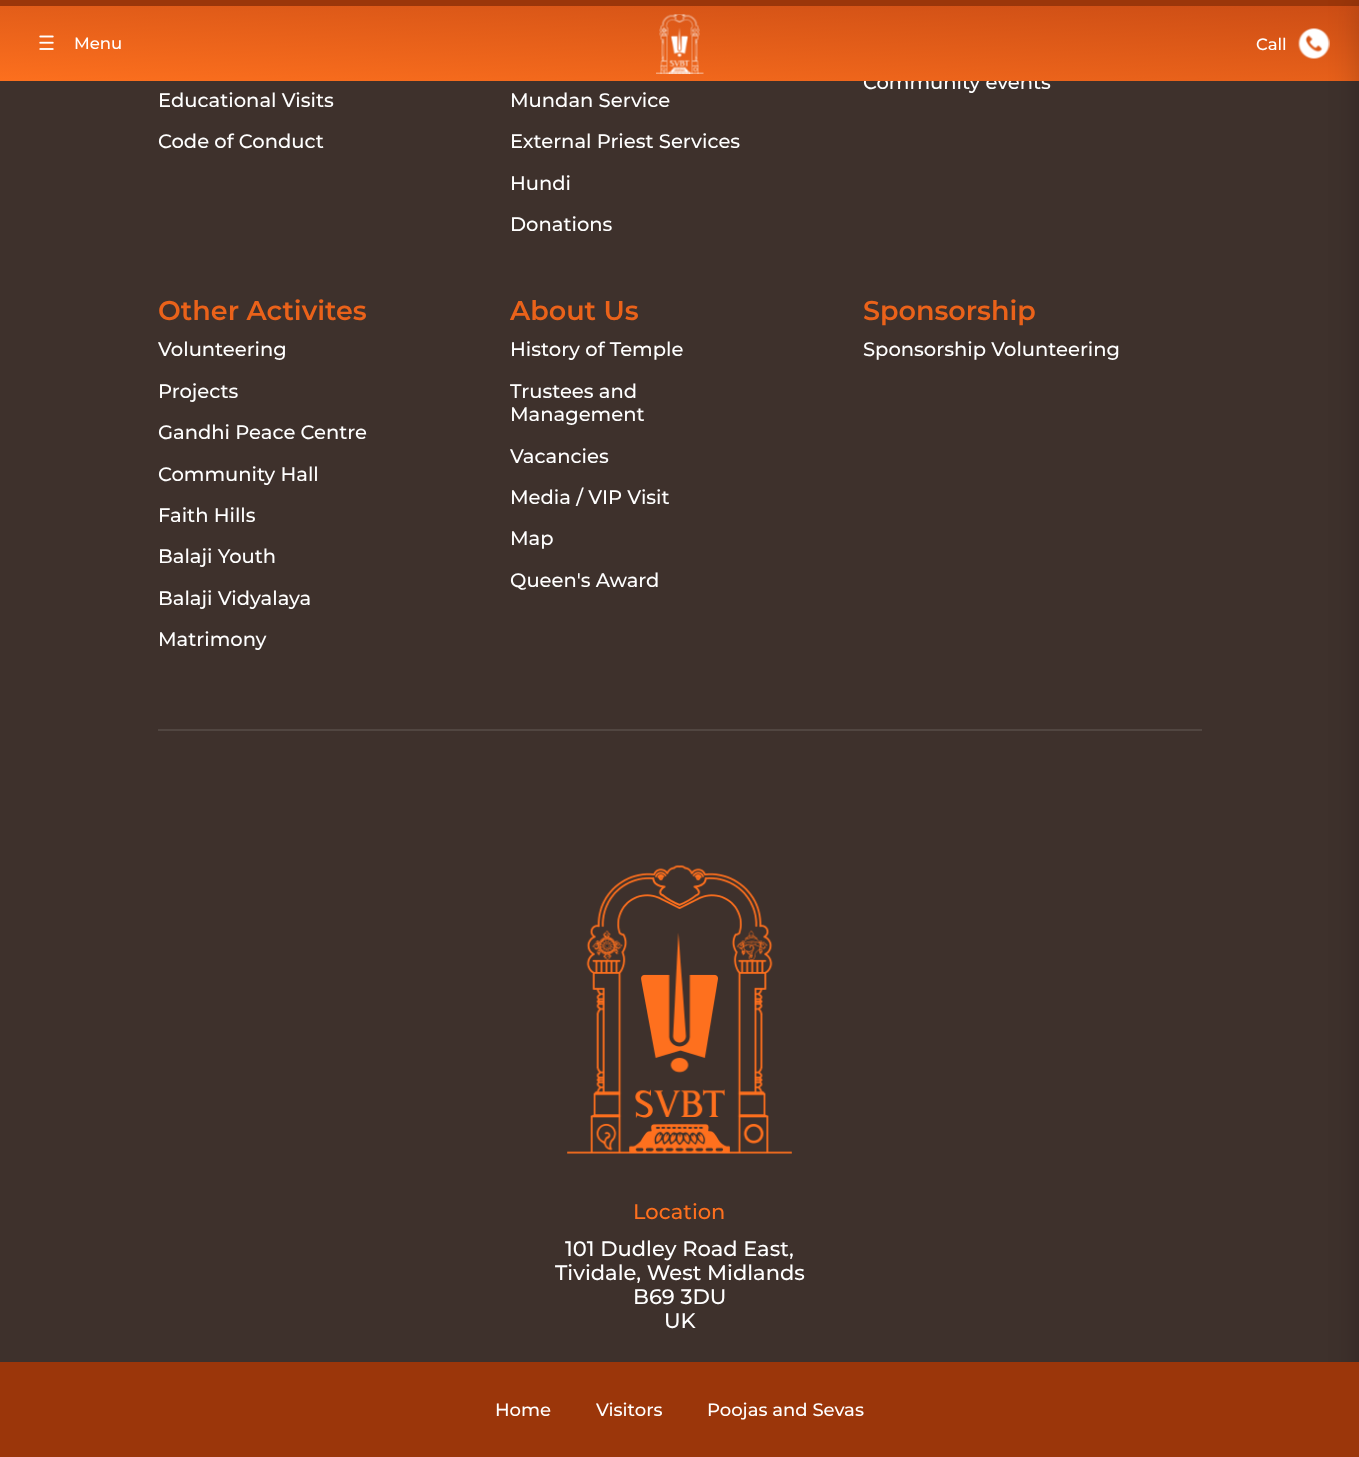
<svg xmlns="http://www.w3.org/2000/svg" width="1359" height="1457">
<defs>
<linearGradient id="g1" gradientUnits="userSpaceOnUse" x1="683" y1="-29" x2="676" y2="116"><stop offset="0" stop-color="#cc4d15"/><stop offset="1" stop-color="#fd701e"/></linearGradient>
</defs>
<rect width="100%" height="100%" fill="#3e312c"/>
<rect width="1359" height="6" fill="#9b360a"/>
<text x="863" y="89" style="font-family:Montserrat;font-size:19.5px;font-weight:500;fill:#fff">Community events</text>
<rect y="6" width="1359" height="75" fill="url(#g1)"/>
<image x="39" y="35" width="15" height="15" href="media/1.png"/>
<text x="74" y="49" style="font-family:Montserrat;font-size:16.5px;font-weight:500;fill:#fff">Menu</text>
<image x="656" y="14" width="48" height="60" href="media/2.png"/>
<text x="1256" y="50" style="font-family:Montserrat;font-size:16.5px;font-weight:500;fill:#fff">Call</text>
<image x="1298" y="28" width="32" height="31" href="media/3.png"/>
<rect x="1359" width="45" height="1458" fill="#00000033" filter="blur(15px)"/>
<rect x="158" y="729" width="1044" height="2" fill="#514641"/>
<text x="158" y="107" style="font-family:Montserrat;font-size:19.5px;font-weight:500;fill:#fff">Educational Visits</text>
<text x="158" y="148" style="font-family:Montserrat;font-size:19.5px;font-weight:500;fill:#fff">Code of Conduct</text>
<text x="510" y="107" style="font-family:Montserrat;font-size:19.5px;font-weight:500;fill:#fff">Mundan Service</text>
<text x="510" y="148" style="font-family:Montserrat;font-size:19.5px;font-weight:500;fill:#fff">External Priest Services</text>
<text x="510" y="190" style="font-family:Montserrat;font-size:19.5px;font-weight:500;fill:#fff">Hundi</text>
<text x="510" y="231" style="font-family:Montserrat;font-size:19.5px;font-weight:500;fill:#fff">Donations</text>
<text x="158" y="320" style="font-family:Montserrat;font-size:27px;font-weight:600;fill:#ea621a">Other Activites</text>
<text x="158" y="356" style="font-family:Montserrat;font-size:19.5px;font-weight:500;fill:#fff">Volunteering</text>
<text x="158" y="398" style="font-family:Montserrat;font-size:19.5px;font-weight:500;fill:#fff">Projects</text>
<text x="158" y="439" style="font-family:Montserrat;font-size:19.5px;font-weight:500;fill:#fff">Gandhi Peace Centre</text>
<text x="158" y="481" style="font-family:Montserrat;font-size:19.5px;font-weight:500;fill:#fff">Community Hall</text>
<text x="158" y="522" style="font-family:Montserrat;font-size:19.5px;font-weight:500;fill:#fff">Faith Hills</text>
<text x="158" y="563" style="font-family:Montserrat;font-size:19.5px;font-weight:500;fill:#fff">Balaji Youth</text>
<text x="158" y="605" style="font-family:Montserrat;font-size:19.5px;font-weight:500;fill:#fff">Balaji Vidyalaya</text>
<text x="158" y="646" style="font-family:Montserrat;font-size:19.5px;font-weight:500;fill:#fff">Matrimony</text>
<text x="510" y="320" style="font-family:Montserrat;font-size:27px;font-weight:600;fill:#ea621a">About Us</text>
<text x="510" y="356" style="font-family:Montserrat;font-size:19.5px;font-weight:500;fill:#fff">History of Temple</text>
<text x="510" y="398" style="font-family:Montserrat;font-size:19.5px;font-weight:500;fill:#fff">Trustees and</text>
<text x="510" y="421" style="font-family:Montserrat;font-size:19.5px;font-weight:500;fill:#fff">Management</text>
<text x="510" y="463" style="font-family:Montserrat;font-size:19.5px;font-weight:500;fill:#fff">Vacancies</text>
<text x="510" y="504" style="font-family:Montserrat;font-size:19.5px;font-weight:500;fill:#fff">Media / VIP Visit</text>
<text x="510" y="545" style="font-family:Montserrat;font-size:19.5px;font-weight:500;fill:#fff">Map</text>
<text x="510" y="587" style="font-family:Montserrat;font-size:19.5px;font-weight:500;fill:#fff">Queen's Award</text>
<text x="863" y="320" style="font-family:Montserrat;font-size:27px;font-weight:600;fill:#ea621a">Sponsorship</text>
<text x="863" y="356" style="font-family:Montserrat;font-size:19.5px;font-weight:500;fill:#fff">Sponsorship Volunteering</text>
<image x="567" y="865" width="225" height="289" href="media/4.png"/>
<text x="633" y="1219" style="font-family:Montserrat;font-size:21px;font-weight:500;fill:#fe701e">Location</text>
<text x="565" y="1256" style="font-family:Montserrat;font-size:21px;font-weight:500;fill:#fff">101 Dudley Road East,</text>
<text x="555" y="1280" style="font-family:Montserrat;font-size:21px;font-weight:500;fill:#fff">Tividale, West Midlands</text>
<text x="633" y="1304" style="font-family:Montserrat;font-size:21px;font-weight:500;fill:#fff">B69 3DU</text>
<text x="664" y="1328" style="font-family:Montserrat;font-size:21px;font-weight:500;fill:#fff">UK</text>
<rect y="1362" width="1359" height="95" fill="#9b360a"/>
<text x="495" y="1416" style="font-family:Montserrat;font-size:18px;font-weight:500;fill:#fff">Home</text>
<text x="596" y="1416" style="font-family:Montserrat;font-size:18px;font-weight:500;fill:#fff">Visitors</text>
<text x="707" y="1416" style="font-family:Montserrat;font-size:18px;font-weight:500;fill:#fff">Poojas and Sevas</text>
</svg>
